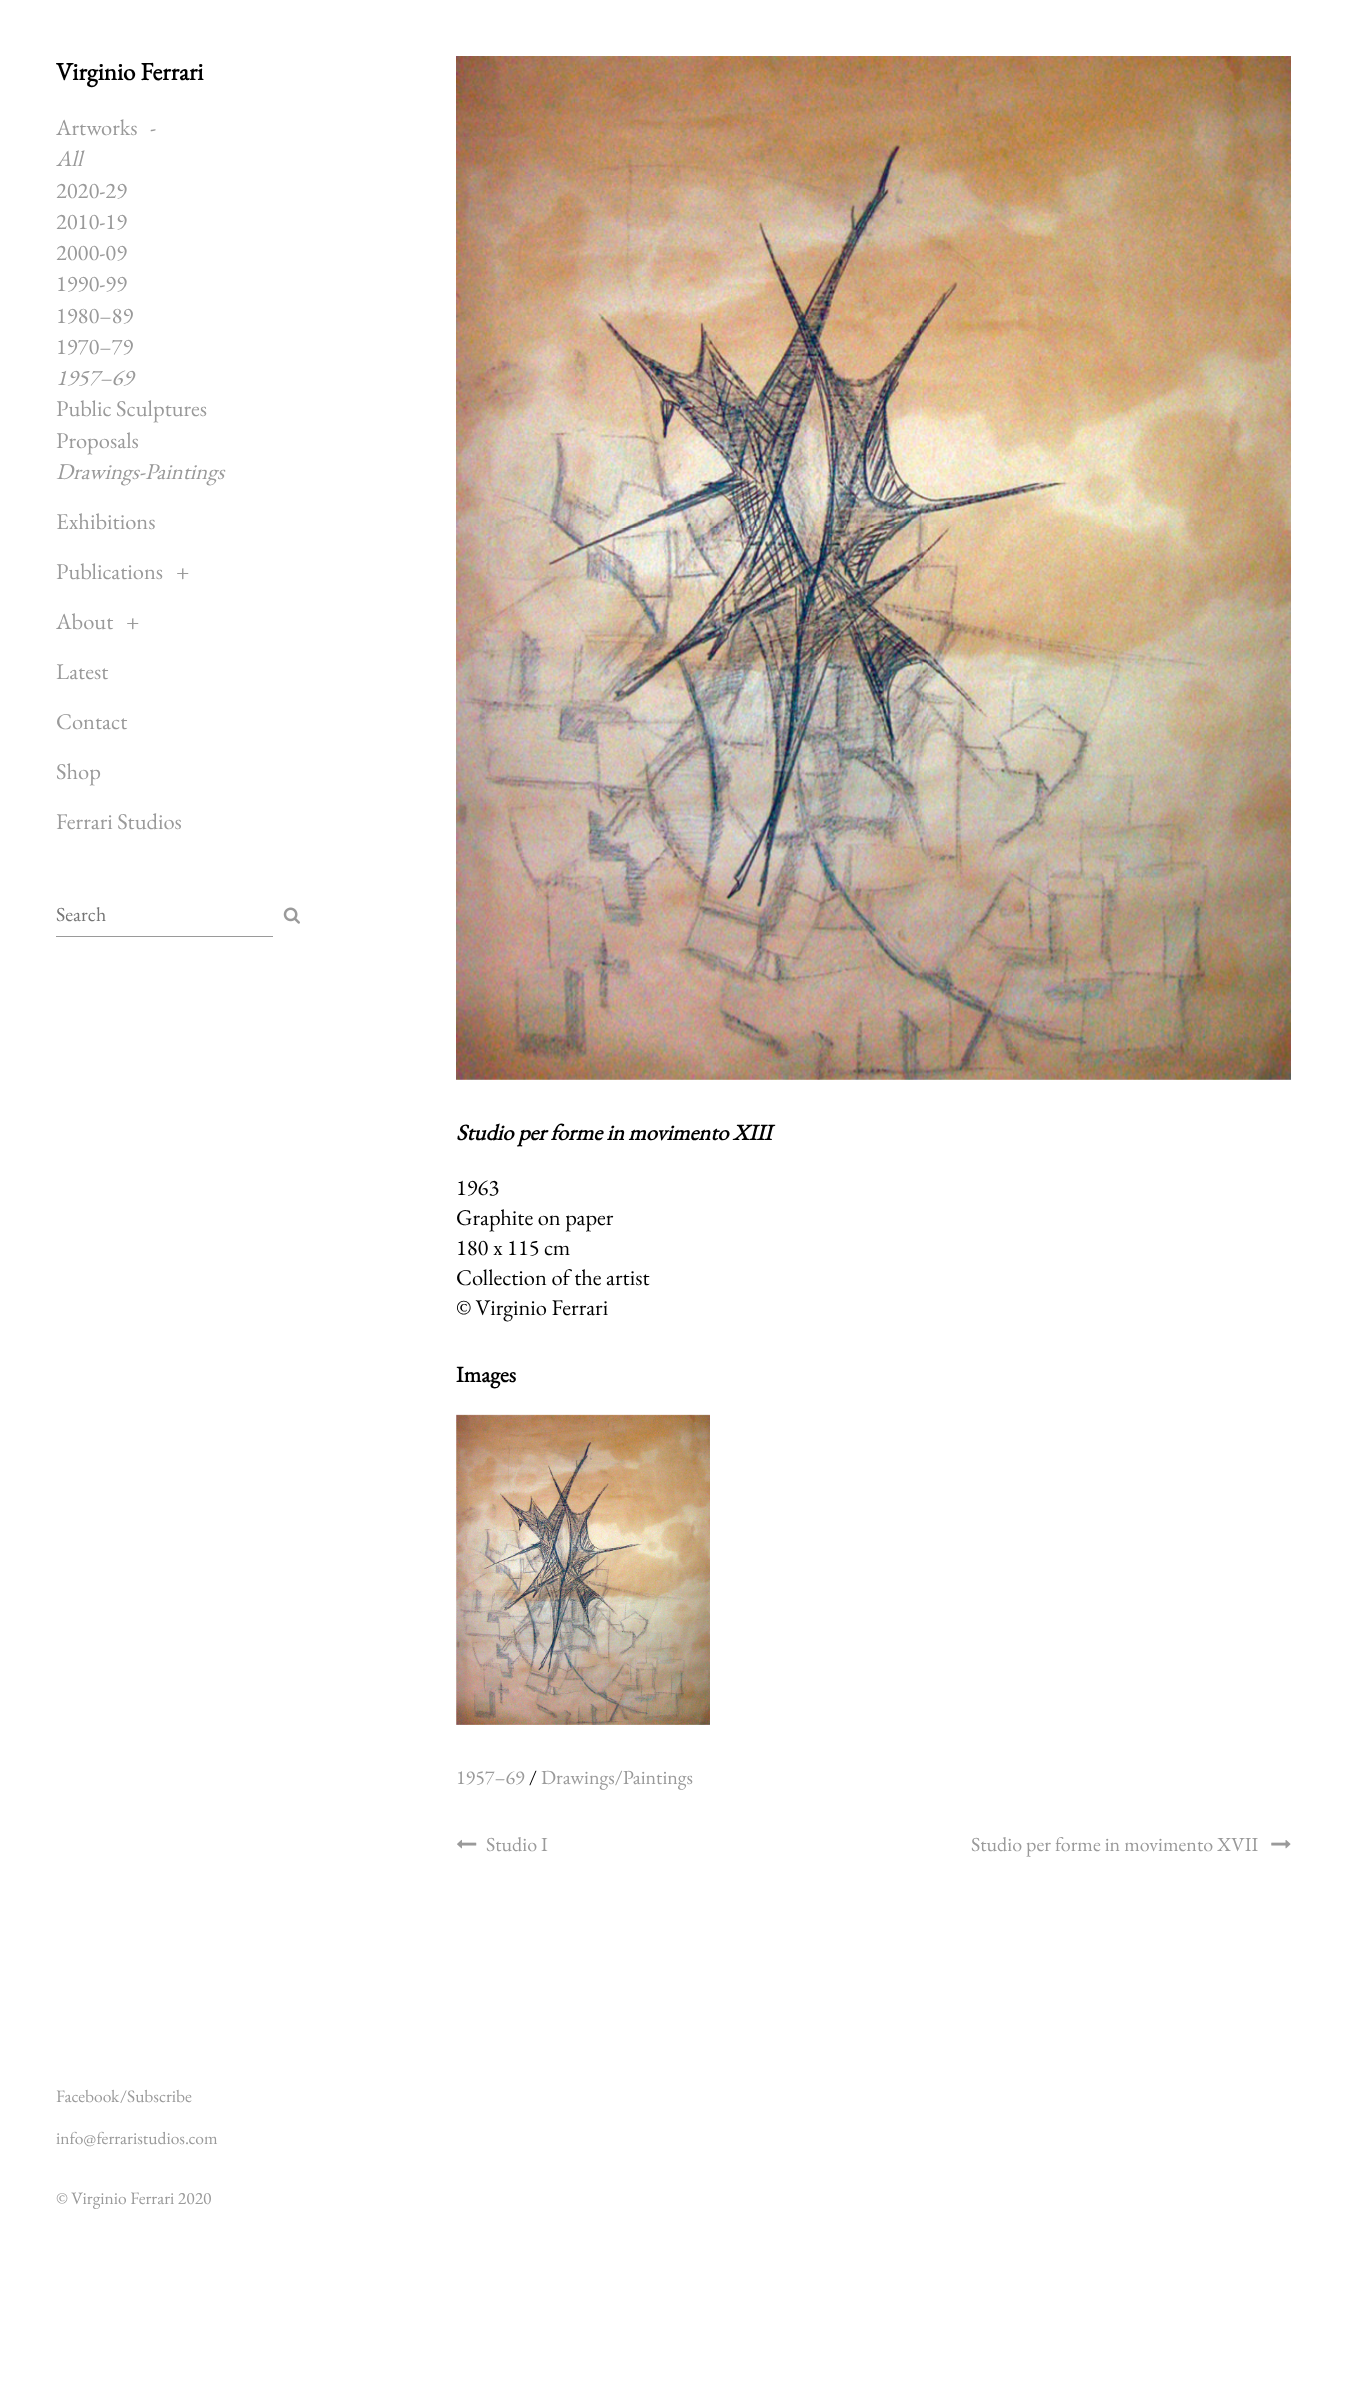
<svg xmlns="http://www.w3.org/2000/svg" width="1347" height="2407">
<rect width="100%" height="100%" fill="#fff"/>
<text x="56" y="80" style="font-family:EB Garamond;font-size:25px;font-weight:bold;fill:#000">Virginio Ferrari</text>
<text x="56" y="135" style="font-family:EB Garamond;font-size:22.5px;fill:#9a9a9a">Artworks</text>
<text x="150" y="135" style="font-family:EB Garamond;font-size:22.5px;fill:#9a9a9a">-</text>
<text x="56" y="166" style="font-family:EB Garamond;font-size:22.5px;font-style:italic;fill:#9a9a9a">All</text>
<text x="56" y="198" style="font-family:EB Garamond;font-size:22.5px;fill:#9a9a9a">2020-29</text>
<text x="56" y="229" style="font-family:EB Garamond;font-size:22.5px;fill:#9a9a9a">2010-19</text>
<text x="56" y="260" style="font-family:EB Garamond;font-size:22.5px;fill:#9a9a9a">2000-09</text>
<text x="56" y="291" style="font-family:EB Garamond;font-size:22.5px;fill:#9a9a9a">1990-99</text>
<text x="56" y="323" style="font-family:EB Garamond;font-size:22.5px;fill:#9a9a9a">1980–89</text>
<text x="56" y="354" style="font-family:EB Garamond;font-size:22.5px;fill:#9a9a9a">1970–79</text>
<text x="56" y="385" style="font-family:EB Garamond;font-size:22.5px;font-style:italic;fill:#9a9a9a">1957–69</text>
<text x="56" y="416" style="font-family:EB Garamond;font-size:22.5px;fill:#9a9a9a">Public Sculptures</text>
<text x="56" y="448" style="font-family:EB Garamond;font-size:22.5px;fill:#9a9a9a">Proposals</text>
<text x="56" y="479" style="font-family:EB Garamond;font-size:22.5px;font-style:italic;fill:#9a9a9a">Drawings-Paintings</text>
<text x="56" y="529" style="font-family:EB Garamond;font-size:22.5px;fill:#9a9a9a">Exhibitions</text>
<text x="56" y="579" style="font-family:EB Garamond;font-size:22.5px;fill:#9a9a9a">Publications</text>
<text x="176" y="579" style="font-family:EB Garamond;font-size:22.5px;fill:#9a9a9a">+</text>
<text x="56" y="629" style="font-family:EB Garamond;font-size:22.5px;fill:#9a9a9a">About</text>
<text x="126" y="629" style="font-family:EB Garamond;font-size:22.5px;fill:#9a9a9a">+</text>
<text x="56" y="679" style="font-family:EB Garamond;font-size:22.5px;fill:#9a9a9a">Latest</text>
<text x="56" y="729" style="font-family:EB Garamond;font-size:22.5px;fill:#9a9a9a">Contact</text>
<text x="56" y="779" style="font-family:EB Garamond;font-size:22.5px;fill:#9a9a9a">Shop</text>
<text x="56" y="829" style="font-family:EB Garamond;font-size:22.5px;fill:#9a9a9a">Ferrari Studios</text>
<rect x="56" y="936" width="217" height="1" fill="#9a9a9a"/>
<text x="56" y="921" style="font-family:EB Garamond;font-size:20px;fill:#757575">Search</text>
<image x="283" y="907" width="17" height="17" href="media/1.png"/>
<image x="456" y="56" width="835" height="1024" href="media/2.png"/>
<text x="456" y="1140" style="font-family:EB Garamond;font-size:22.5px;font-weight:bold;font-style:italic;fill:#000">Studio per forme in movimento XIII</text>
<text x="456" y="1195" style="font-family:EB Garamond;font-size:22.5px;fill:#000">1963</text>
<text x="456" y="1225" style="font-family:EB Garamond;font-size:22.5px;fill:#000">Graphite on paper</text>
<text x="456" y="1255" style="font-family:EB Garamond;font-size:22.5px;fill:#000">180 x 115 cm</text>
<text x="456" y="1285" style="font-family:EB Garamond;font-size:22.5px;fill:#000">Collection of the artist</text>
<text x="456" y="1315" style="font-family:EB Garamond;font-size:22.5px;fill:#000">© Virginio Ferrari</text>
<text x="456" y="1382" style="font-family:EB Garamond;font-size:22.5px;font-weight:bold;fill:#000">Images</text>
<image x="456" y="1414" width="254" height="311" href="media/3.png"/>
<text x="456" y="1784" style="font-family:EB Garamond;font-size:20px;fill:#9a9a9a">1957–69</text>
<text x="529" y="1784" style="font-family:EB Garamond;font-size:20px;fill:#000">/</text>
<text x="541" y="1784" style="font-family:EB Garamond;font-size:20px;fill:#9a9a9a">Drawings/Paintings</text>
<image x="457" y="1839" width="20" height="10" href="media/4.png"/>
<text x="486" y="1851" style="font-family:EB Garamond;font-size:20px;fill:#9a9a9a">Studio I</text>
<text x="971" y="1851" style="font-family:EB Garamond;font-size:20px;fill:#9a9a9a">Studio per forme in movimento XVII</text>
<image x="1271" y="1840" width="20" height="9" href="media/5.png"/>
<text x="56" y="2102" style="font-family:EB Garamond;font-size:17.5px;fill:#9a9a9a">Facebook</text>
<text x="120" y="2102" style="font-family:EB Garamond;font-size:17.5px;fill:#9a9a9a">/</text>
<text x="127" y="2102" style="font-family:EB Garamond;font-size:17.5px;fill:#9a9a9a">Subscribe</text>
<text x="56" y="2144" style="font-family:EB Garamond;font-size:17.5px;fill:#9a9a9a">info@ferraristudios.com</text>
<text x="56" y="2204" style="font-family:EB Garamond;font-size:17.5px;fill:#9a9a9a">© Virginio Ferrari 2020</text>
</svg>
